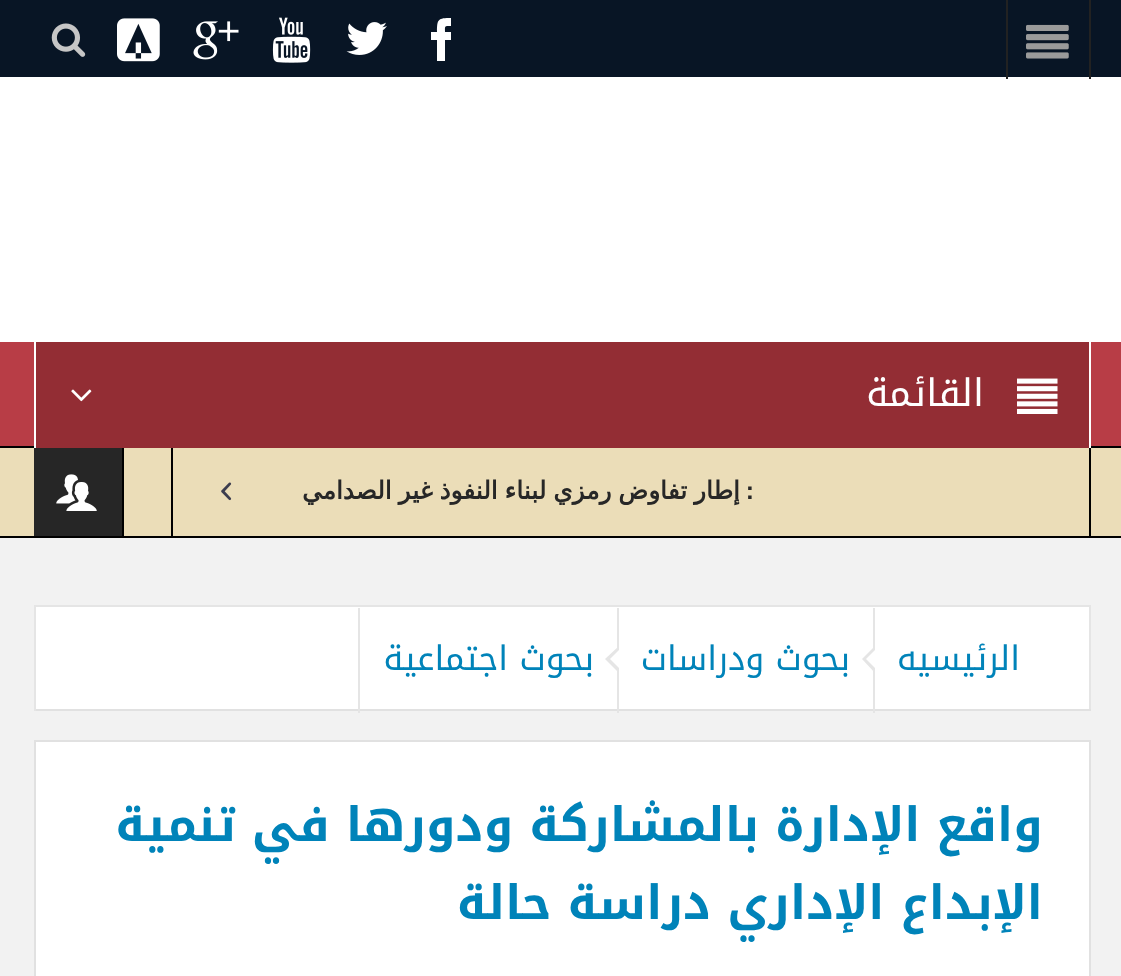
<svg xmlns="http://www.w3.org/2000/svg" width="1121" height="976">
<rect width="100%" height="100%" fill="#f2f2f2"/>
<rect width="1121" height="77" fill="#081525"/>
<rect y="77" width="1121" height="265" fill="#fff"/>
<rect x="1089" width="2" height="79" fill="#222"/>
<rect x="1006" width="2" height="79" fill="#222"/>
<image x="1026" y="24" width="43" height="35" href="media/1.png"/>
<path d="M445 61h-8v-21h-6v-8h6c0-13 1-14 14-14v8c-7 0-6 0-6 6h6v8h-6z" fill="#fff"/>
<image x="346" y="22" width="41" height="33" href="media/2.png"/>
<image x="272" y="17" width="39" height="46" href="media/3.png"/>
<image x="193" y="21" width="46" height="39" href="media/4.png"/>
<image x="117" y="18" width="43" height="44" href="media/5.png"/>
<image x="51" y="23" width="35" height="34" href="media/6.png"/>
<rect y="342" width="1121" height="104" fill="#b83d46"/>
<rect y="446" width="1121" height="2" fill="#000"/>
<rect x="36" y="342" width="1053" height="106" fill="#932d34"/>
<rect x="1089" y="342" width="2" height="106" fill="#fff"/>
<rect x="34" y="342" width="2" height="106" fill="#fff"/>
<image x="1017" y="378" width="41" height="36" href="media/7.png"/>
<text x="984" y="406" style="font-family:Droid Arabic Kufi;font-size:38px;direction:rtl;fill:#fff">القائمة</text>
<image x="71" y="389" width="21" height="13" href="media/8.png"/>
<rect y="448" width="1121" height="88" fill="#ebddb8"/>
<rect y="536" width="1121" height="2" fill="#000"/>
<rect x="1089" y="448" width="2" height="88" fill="#000"/>
<rect x="171" y="448" width="2" height="88" fill="#000"/>
<text x="754" y="499" style="font-family:Liberation Sans;font-size:24.75px;font-weight:bold;direction:rtl;fill:#272727">:</text>
<text x="740" y="499" word-spacing="-1" style="font-family:DejaVu Sans;font-size:24.75px;font-weight:bold;direction:rtl;fill:#272727">إطار تفاوض رمزي لبناء النفوذ غير الصدامي</text>
<image x="221" y="482" width="11" height="19" href="media/9.png"/>
<rect x="34" y="448" width="88" height="88" fill="#262626"/>
<rect x="122" y="448" width="2" height="88" fill="#000"/>
<image x="56" y="474" width="41" height="37" href="media/10.png"/>
<rect x="36" y="607" width="1053" height="102" fill="#fff"/>
<rect x="34" y="605" width="1057" height="2" fill="#e5e5e5"/>
<rect x="1089" y="605" width="2" height="106" fill="#e5e5e5"/>
<rect x="34" y="709" width="1057" height="2" fill="#e1e1e1"/>
<rect x="34" y="605" width="2" height="106" fill="#e5e5e5"/>
<rect x="873" y="608" width="2" height="105" fill="#e5e5e5"/>
<text x="1020" y="670" style="font-family:Droid Arabic Kufi;font-size:33.75px;direction:rtl;fill:#0083b9">الرئيسيه</text>
<path d="M875 646v27l-13-14z" fill="#e5e5e5"/>
<path d="M875 650v18l-9-9z" fill="#fff"/>
<rect x="617" y="608" width="2" height="105" fill="#e5e5e5"/>
<text x="850" y="670" style="font-family:Droid Arabic Kufi;font-size:33.75px;direction:rtl;fill:#0083b9">بحوث ودراسات</text>
<path d="M619 646v27l-14-14z" fill="#e5e5e5"/>
<path d="M619 650v18l-9-9z" fill="#fff"/>
<rect x="358" y="608" width="2" height="105" fill="#e5e5e5"/>
<text x="594" y="670" style="font-family:Droid Arabic Kufi;font-size:33.75px;direction:rtl;fill:#0083b9">بحوث اجتماعية</text>
<rect x="35" y="741" width="1055" height="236" fill="#fff" stroke="#e1e1e1" stroke-width="2"/>
<text x="1043" y="841" style="font-family:Droid Arabic Kufi;font-size:47.25px;font-weight:bold;direction:rtl;fill:#0083b9">واقع الإدارة بالمشاركة ودورها في تنمية</text>
<text x="1043" y="919" style="font-family:Droid Arabic Kufi;font-size:47.25px;font-weight:bold;direction:rtl;fill:#0083b9">الإبداع الإداري دراسة حالة</text>
</svg>
